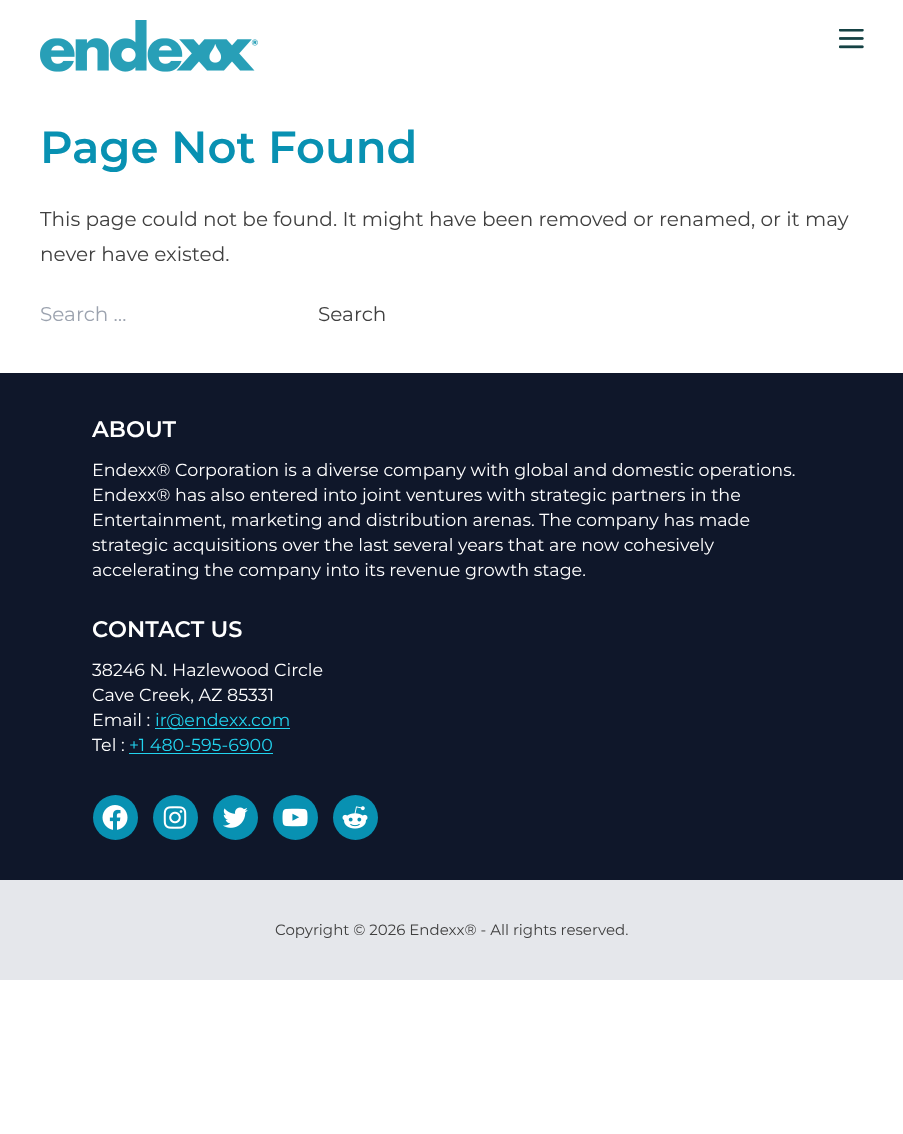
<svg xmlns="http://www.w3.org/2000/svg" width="903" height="1134">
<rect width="100%" height="100%" fill="#fff"/>
<image x="40" y="20" width="218" height="52" href="media/1.png"/>
<image x="839" y="29" width="25" height="20" href="media/2.png"/>
<text x="40" y="163" style="font-family:Montserrat;font-size:45px;font-weight:600;fill:#0891b2">Page Not Found</text>
<text x="40" y="226" style="font-family:Montserrat;font-size:20px;fill:#404040">This page could not be found. It might have been removed or renamed, or it may</text>
<text x="40" y="261" style="font-family:Montserrat;font-size:20px;fill:#404040">never have existed.</text>
<text x="40" y="321" style="font-family:Montserrat;font-size:20px;fill:#9ca3af">Search …</text>
<text x="318" y="321" style="font-family:Montserrat;font-size:20px;fill:#404040">Search</text>
<rect y="373" width="903" height="507" fill="#0f172a"/>
<text x="92" y="437" style="font-family:Montserrat;font-size:22.5px;font-weight:600;fill:#fff">ABOUT</text>
<text x="92" y="476" style="font-family:Montserrat;font-size:17.5px;fill:#fff">Endexx® Corporation is a diverse company with global and domestic operations.</text>
<text x="92" y="501" style="font-family:Montserrat;font-size:17.5px;fill:#fff">Endexx® has also entered into joint ventures with strategic partners in the</text>
<text x="92" y="526" style="font-family:Montserrat;font-size:17.5px;fill:#fff">Entertainment, marketing and distribution arenas. The company has made</text>
<text x="92" y="551" style="font-family:Montserrat;font-size:17.5px;fill:#fff">strategic acquisitions over the last several years that are now cohesively</text>
<text x="92" y="576" style="font-family:Montserrat;font-size:17.5px;fill:#fff">accelerating the company into its revenue growth stage.</text>
<text x="92" y="637" style="font-family:Montserrat;font-size:22.5px;font-weight:600;fill:#fff">CONTACT US</text>
<text x="92" y="676" style="font-family:Montserrat;font-size:17.5px;fill:#fff">38246 N. Hazlewood Circle</text>
<text x="92" y="701" style="font-family:Montserrat;font-size:17.5px;fill:#fff">Cave Creek, AZ 85331</text>
<text x="92" y="726" style="font-family:Montserrat;font-size:17.5px;fill:#fff">Email :</text>
<rect x="155" y="728" width="135" height="1" fill="#22d3ee"/>
<text x="155" y="726" style="font-family:Montserrat;font-size:17.5px;fill:#22d3ee">ir@endexx.com</text>
<text x="92" y="751" style="font-family:Montserrat;font-size:17.5px;fill:#fff">Tel :</text>
<text x="129" y="751" style="font-family:Montserrat;font-size:17.5px;fill:#22d3ee">+1 480-595-6900</text>
<rect x="129" y="753" width="144" height="1" fill="#22d3ee"/>
<circle cx="115.5" cy="817.5" r="22.5" fill="#0891b2"/>
<image x="102" y="805" width="26" height="25" href="media/3.png"/>
<circle cx="175.5" cy="817.5" r="22.5" fill="#0891b2"/>
<image x="163" y="806" width="24" height="23" href="media/4.png"/>
<circle cx="235.5" cy="817.5" r="22.5" fill="#0891b2"/>
<image x="223" y="807" width="25" height="21" href="media/5.png"/>
<circle cx="295.5" cy="817.5" r="22.5" fill="#0891b2"/>
<image x="282" y="808" width="26" height="19" href="media/6.png"/>
<circle cx="355.5" cy="817.5" r="22.5" fill="#0891b2"/>
<image x="342" y="806" width="26" height="23" href="media/7.png"/>
<rect y="880" width="903" height="100" fill="#e5e7eb"/>
<text x="275" y="935" style="font-family:Montserrat;font-size:15px;fill:#404040">Copyright © 2026 Endexx® - All rights reserved.</text>
</svg>
